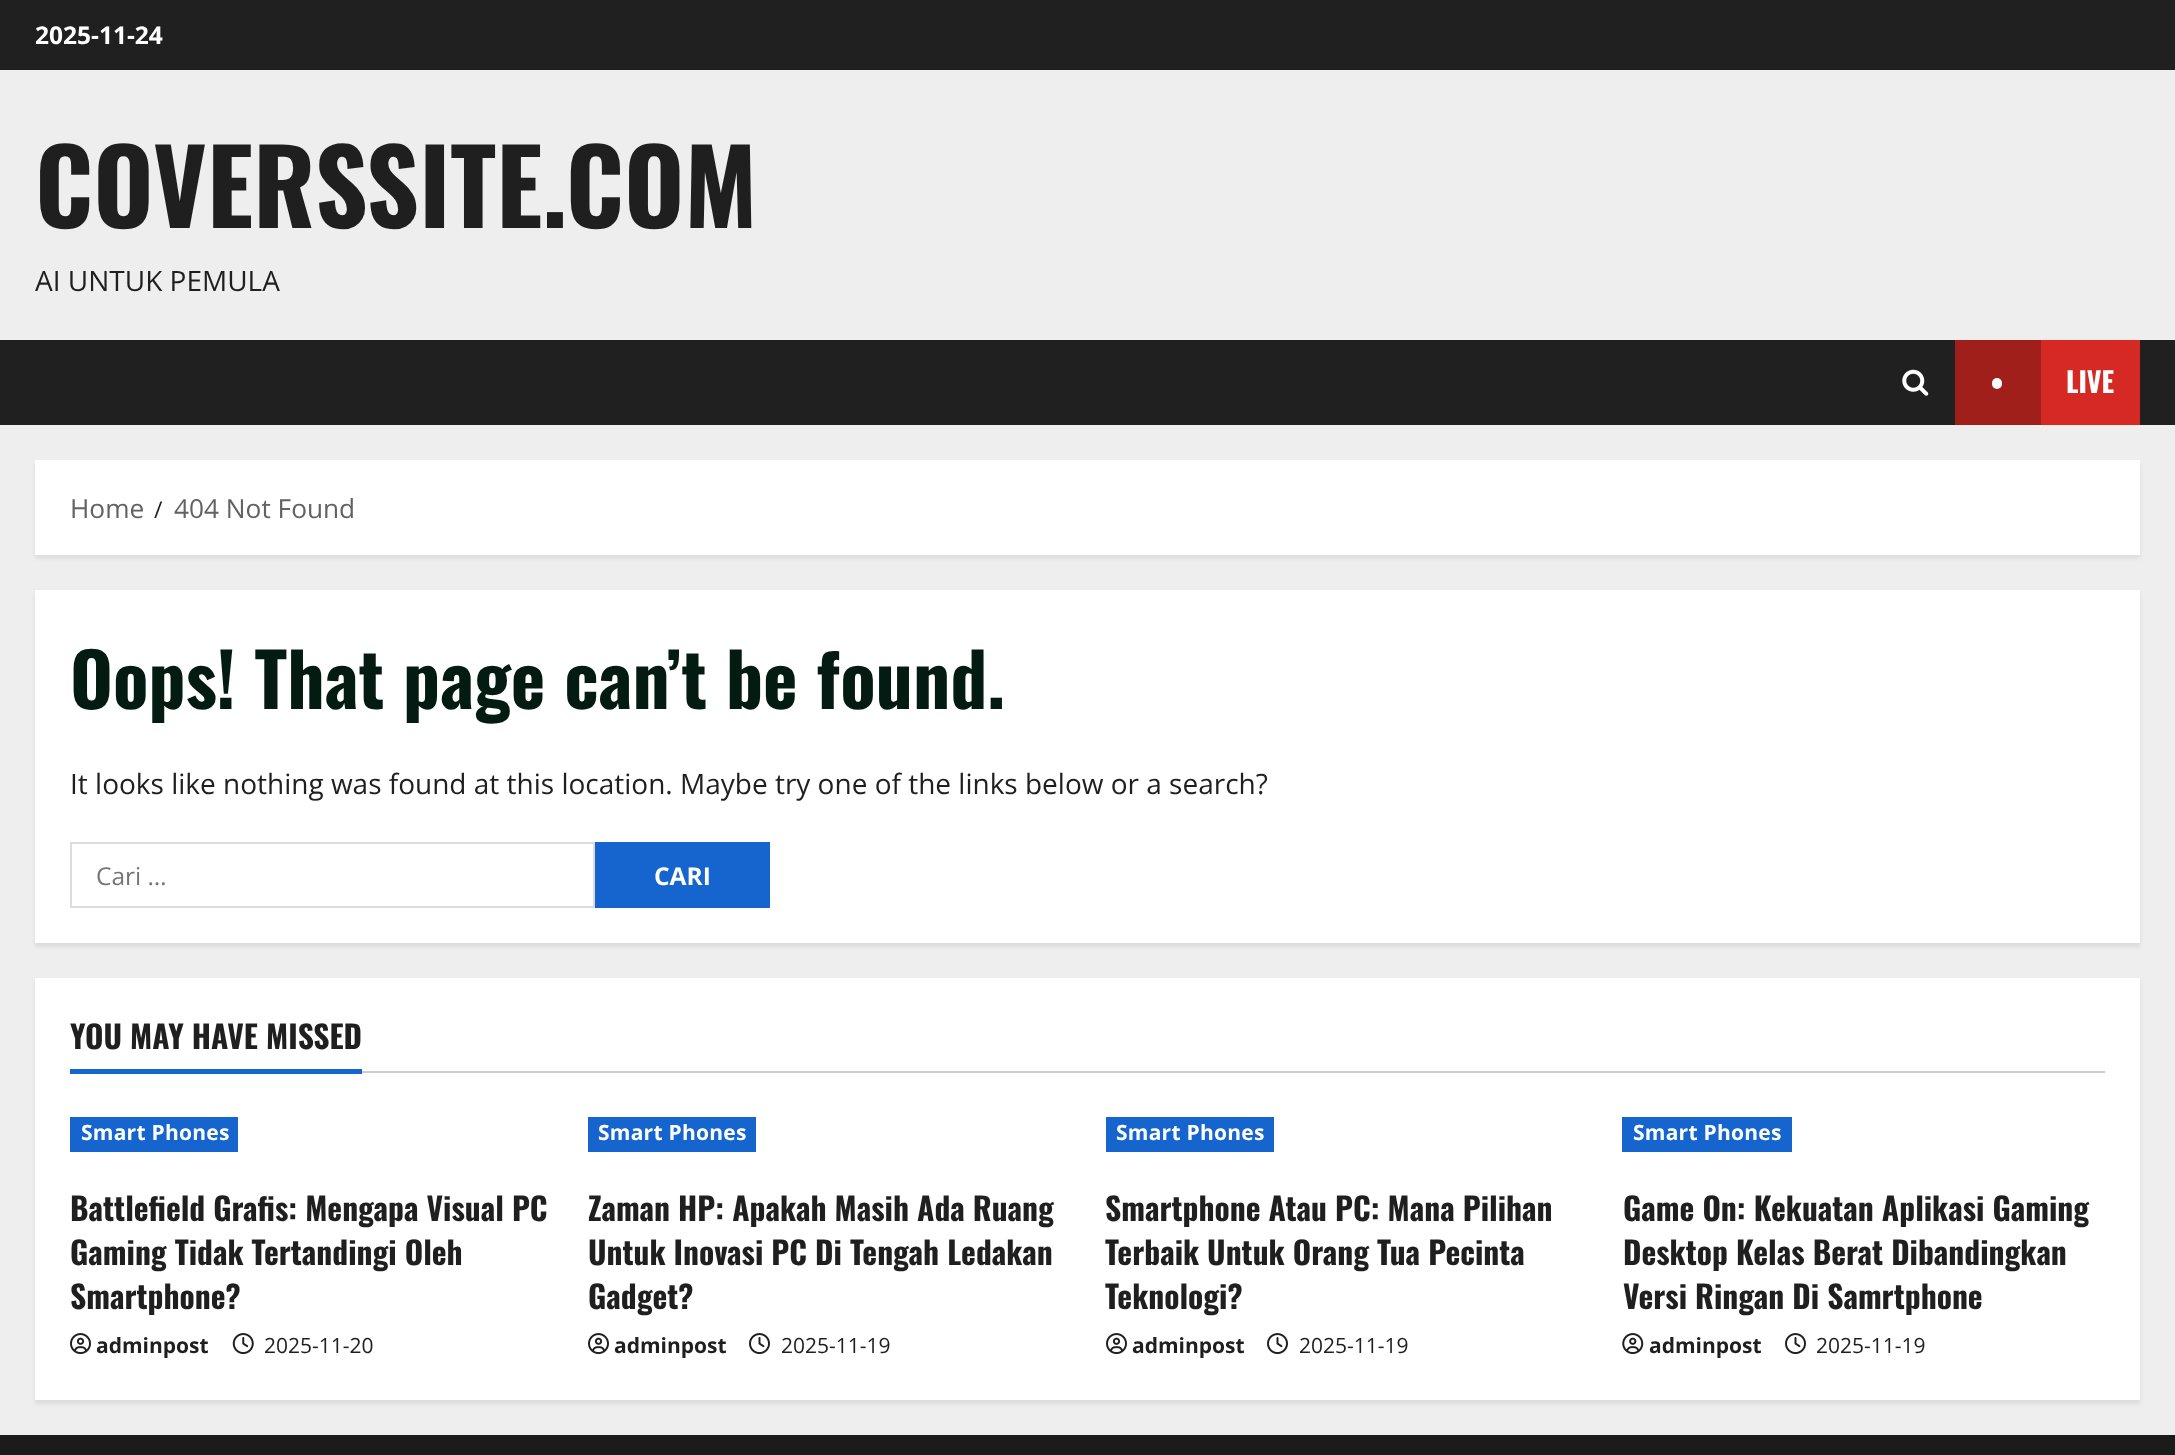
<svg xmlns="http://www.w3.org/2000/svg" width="2175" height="1455">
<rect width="100%" height="100%" fill="#eee"/>
<rect width="2175" height="70" fill="#202020"/>
<text x="35" y="44" style="font-family:Open Sans;font-size:24.5px;font-weight:bold;fill:#fff">2025-11-24</text>
<text x="35" y="228" style="font-family:Oswald;font-size:103.25px;font-weight:bold;fill:#1f1f1f">COVERSSITE.COM</text>
<text x="35" y="291" style="font-family:Open Sans;font-size:28px;fill:#1f1f1f">AI UNTUK PEMULA</text>
<rect y="340" width="2175" height="85" fill="#202020"/>
<image x="1902" y="369" width="27" height="27" href="media/1.png"/>
<rect x="2041" y="340" width="99" height="85" fill="#d72924"/>
<rect x="1955" y="340" width="86" height="85" fill="#a11f1b"/>
<rect x="1992" y="378" width="10" height="11" rx="5" fill="#fff"/>
<text x="2066" y="393" style="font-family:Oswald;font-size:28px;font-weight:bold;fill:#fff">LIVE</text>
<rect x="35" y="464" width="2105" height="94" fill="#00000014" filter="blur(2px)"/>
<rect x="35" y="460" width="2105" height="95" fill="#fff"/>
<text x="70" y="518" style="font-family:Open Sans;font-size:26.25px;fill:#626262">Home</text>
<text x="154" y="518" style="font-family:Open Sans;font-size:23px;fill:#1f1f1f">/</text>
<text x="174" y="518" style="font-family:Open Sans;font-size:26.25px;fill:#626262">404 Not Found</text>
<rect x="35" y="593" width="2105" height="354" fill="#00000014" filter="blur(2px)"/>
<rect x="35" y="590" width="2105" height="353" fill="#fff"/>
<text x="70" y="709" style="font-family:Oswald;font-size:73.5px;font-weight:bold;fill:#031b11">Oops! That page can’t be found.</text>
<text x="70" y="794" style="font-family:Open Sans;font-size:28px;fill:#1f1f1f">It looks like nothing was found at this location. Maybe try one of the links below or a search?</text>
<rect x="71" y="843" width="523" height="64" fill="none" stroke="#dcdcdc" stroke-width="2"/>
<text x="96" y="885" style="font-family:Open Sans;font-size:24.5px;fill:#757575">Cari …</text>
<rect x="595" y="842" width="175" height="66" fill="#1665cf"/>
<text x="654" y="885" style="font-family:Open Sans;font-size:24.5px;font-weight:bold;fill:#fff">CARI</text>
<rect x="35" y="982" width="2105" height="422" fill="#00000014" filter="blur(2px)"/>
<rect x="35" y="978" width="2105" height="422" fill="#fff"/>
<rect x="362" y="1071" width="1743" height="2" fill="#ccc"/>
<text x="70" y="1049" style="font-family:Oswald;font-size:31.5px;font-weight:bold;fill:#1f1f1f">YOU MAY HAVE MISSED</text>
<rect x="70" y="1069" width="292" height="5" fill="#1665cf"/>
<rect x="70" y="1117" width="168" height="35" fill="#1665cf"/>
<text x="81" y="1140" style="font-family:Open Sans;font-size:21px;font-weight:bold;letter-spacing:0.25px;fill:#fff">Smart Phones</text>
<text x="70" y="1221" style="font-family:Oswald;font-size:31.5px;font-weight:bold;fill:#1f1f1f">Battlefield Grafis: Mengapa Visual PC</text>
<text x="70" y="1265" style="font-family:Oswald;font-size:31.5px;font-weight:bold;fill:#1f1f1f">Gaming Tidak Tertandingi Oleh</text>
<text x="70" y="1309" style="font-family:Oswald;font-size:31.5px;font-weight:bold;fill:#1f1f1f">Smartphone?</text>
<image x="70" y="1333" width="21" height="22" href="media/2.png"/>
<text x="96" y="1353" style="font-family:Open Sans;font-size:21px;font-weight:bold;fill:#1f1f1f">adminpost</text>
<image x="232" y="1333" width="22" height="22" href="media/3.png"/>
<text x="264" y="1353" style="font-family:Open Sans;font-size:21px;fill:#1f1f1f">2025-11-20</text>
<rect x="588" y="1117" width="168" height="35" fill="#1665cf"/>
<text x="598" y="1140" style="font-family:Open Sans;font-size:21px;font-weight:bold;letter-spacing:0.25px;fill:#fff">Smart Phones</text>
<text x="588" y="1221" style="font-family:Oswald;font-size:31.5px;font-weight:bold;fill:#1f1f1f">Zaman HP: Apakah Masih Ada Ruang</text>
<text x="588" y="1265" style="font-family:Oswald;font-size:31.5px;font-weight:bold;fill:#1f1f1f">Untuk Inovasi PC Di Tengah Ledakan</text>
<text x="588" y="1309" style="font-family:Oswald;font-size:31.5px;font-weight:bold;fill:#1f1f1f">Gadget?</text>
<image x="588" y="1333" width="21" height="22" href="media/2.png"/>
<text x="614" y="1353" style="font-family:Open Sans;font-size:21px;font-weight:bold;fill:#1f1f1f">adminpost</text>
<image x="749" y="1333" width="21" height="22" href="media/4.png"/>
<text x="781" y="1353" style="font-family:Open Sans;font-size:21px;fill:#1f1f1f">2025-11-19</text>
<rect x="1106" y="1117" width="168" height="35" fill="#1665cf"/>
<text x="1116" y="1140" style="font-family:Open Sans;font-size:21px;font-weight:bold;letter-spacing:0.25px;fill:#fff">Smart Phones</text>
<text x="1105" y="1221" style="font-family:Oswald;font-size:31.5px;font-weight:bold;fill:#1f1f1f">Smartphone Atau PC: Mana Pilihan</text>
<text x="1105" y="1265" style="font-family:Oswald;font-size:31.5px;font-weight:bold;fill:#1f1f1f">Terbaik Untuk Orang Tua Pecinta</text>
<text x="1105" y="1309" style="font-family:Oswald;font-size:31.5px;font-weight:bold;fill:#1f1f1f">Teknologi?</text>
<image x="1106" y="1333" width="21" height="22" href="media/2.png"/>
<text x="1132" y="1353" style="font-family:Open Sans;font-size:21px;font-weight:bold;fill:#1f1f1f">adminpost</text>
<image x="1267" y="1333" width="21" height="22" href="media/4.png"/>
<text x="1299" y="1353" style="font-family:Open Sans;font-size:21px;fill:#1f1f1f">2025-11-19</text>
<rect x="1622" y="1117" width="170" height="35" fill="#1665cf"/>
<text x="1633" y="1140" style="font-family:Open Sans;font-size:21px;font-weight:bold;letter-spacing:0.25px;fill:#fff">Smart Phones</text>
<text x="1623" y="1221" style="font-family:Oswald;font-size:31.5px;font-weight:bold;fill:#1f1f1f">Game On: Kekuatan Aplikasi Gaming</text>
<text x="1623" y="1265" style="font-family:Oswald;font-size:31.5px;font-weight:bold;fill:#1f1f1f">Desktop Kelas Berat Dibandingkan</text>
<text x="1623" y="1309" style="font-family:Oswald;font-size:31.5px;font-weight:bold;fill:#1f1f1f">Versi Ringan Di Samrtphone</text>
<image x="1622" y="1333" width="22" height="22" href="media/5.png"/>
<text x="1649" y="1353" style="font-family:Open Sans;font-size:21px;font-weight:bold;fill:#1f1f1f">adminpost</text>
<image x="1785" y="1333" width="21" height="22" href="media/4.png"/>
<text x="1816" y="1353" style="font-family:Open Sans;font-size:21px;fill:#1f1f1f">2025-11-19</text>
<rect y="1435" width="2175" height="20" fill="#1b1b1b"/>
</svg>
